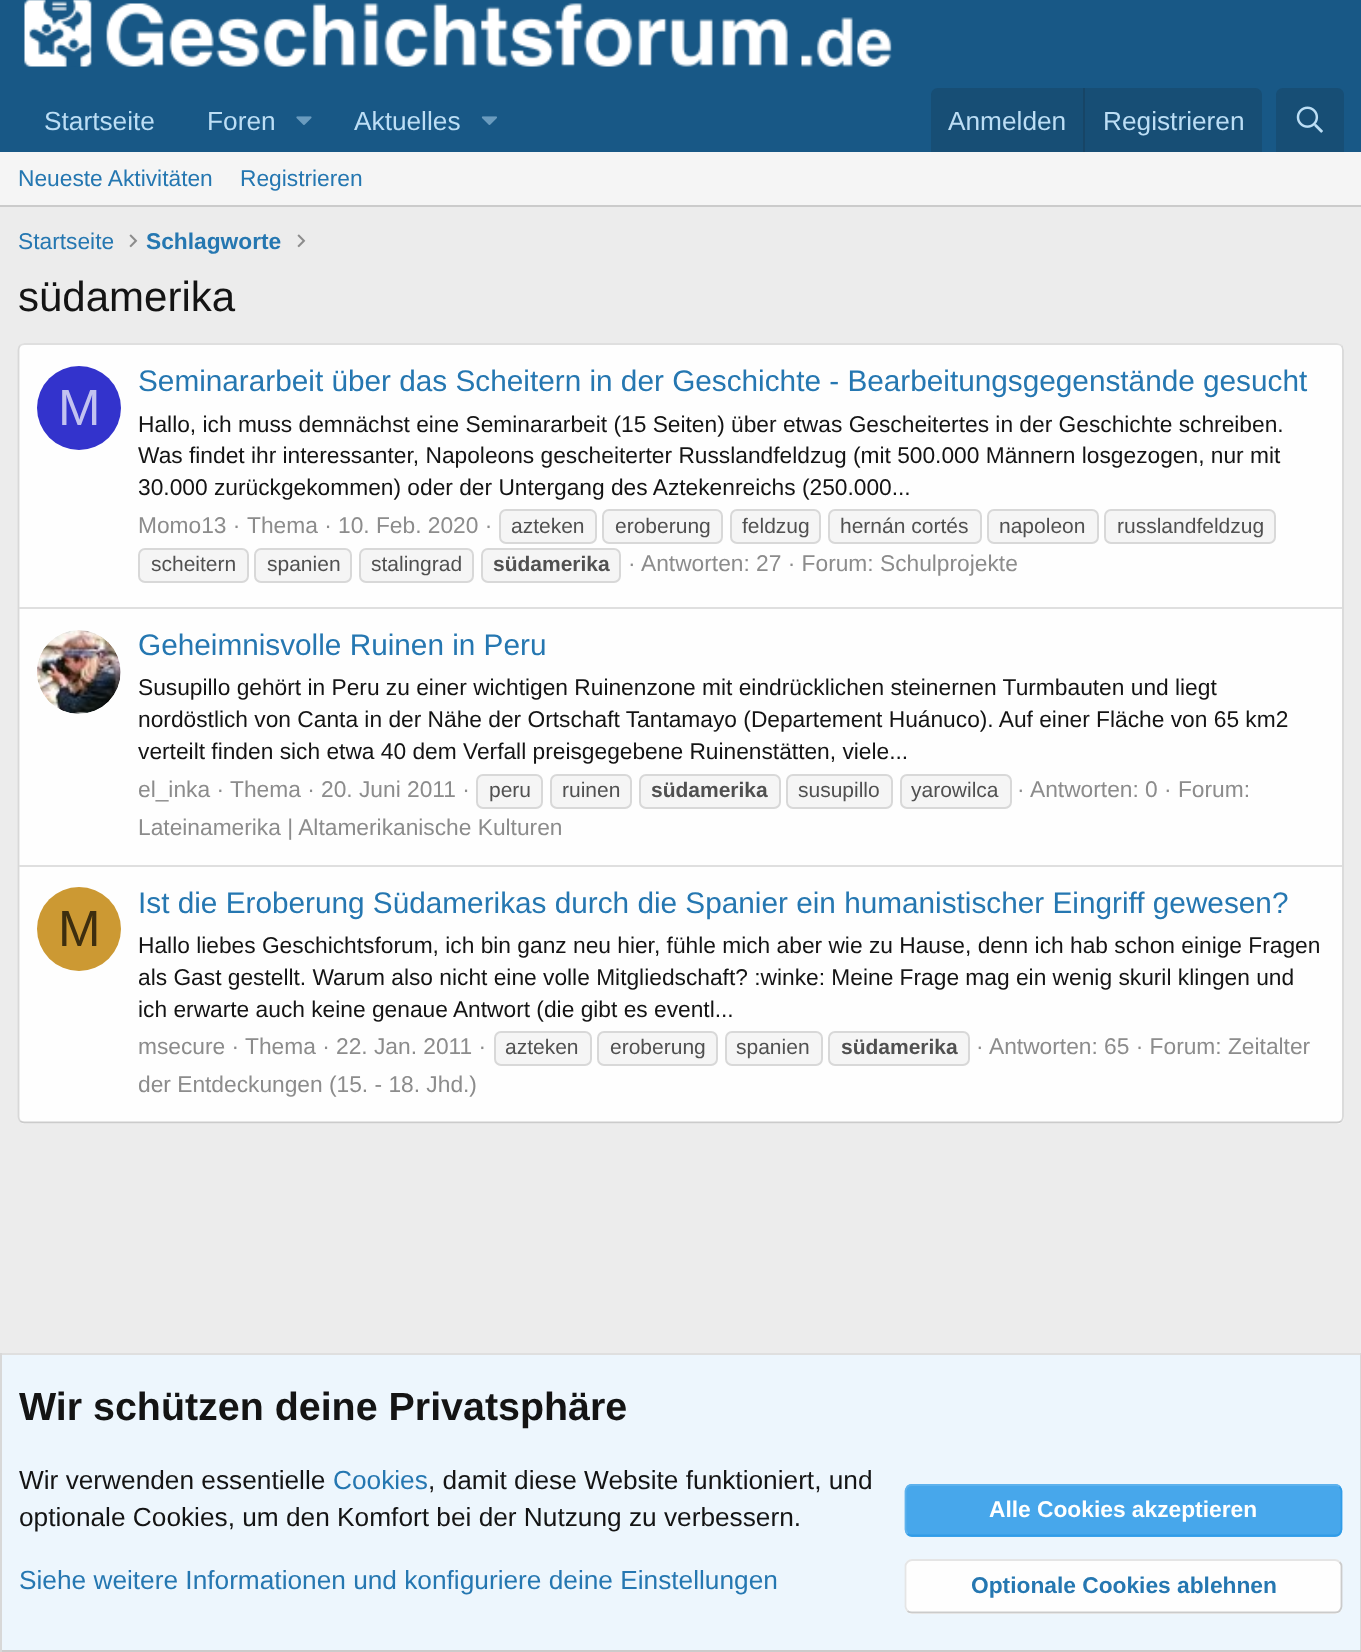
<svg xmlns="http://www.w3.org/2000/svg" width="1361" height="1652">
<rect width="100%" height="100%" fill="#ececec"/>
<rect width="1361" height="152" fill="#185886"/>
<image x="24" y="0" width="868" height="67" href="media/1.png"/>
<text x="44" y="130" style="font-family:Liberation Sans;font-size:26.25px;fill:#bcdef5">Startseite</text>
<text x="207" y="130" style="font-family:Liberation Sans;font-size:26.25px;fill:#bcdef5">Foren</text>
<image x="296" y="116" width="16" height="9" href="media/2.png"/>
<text x="354" y="130" style="font-family:Liberation Sans;font-size:26.25px;fill:#bcdef5">Aktuelles</text>
<image x="481" y="116" width="16" height="9" href="media/3.png"/>
<path d="M938 88h317c4 0 7 3 7 7v57h-331v-57c0-4 3-7 7-7z" fill="#174e75"/>
<text x="948" y="130" style="font-family:Liberation Sans;font-size:26.25px;fill:#bcdef5">Anmelden</text>
<rect x="1083" y="88" width="2" height="64" fill="#174566"/>
<text x="1103" y="130" style="font-family:Liberation Sans;font-size:26.25px;fill:#bcdef5">Registrieren</text>
<path d="M1283 88h54c4 0 7 3 7 7v57h-68v-57c0-4 3-7 7-7z" fill="#174e75"/>
<image x="1296" y="106" width="27" height="27" href="media/4.png"/>
<rect y="152" width="1361" height="53" fill="#f5f5f5"/>
<rect y="205" width="1361" height="2" fill="#cbcbcb"/>
<text x="18" y="186" style="font-family:Liberation Sans;font-size:22.75px;fill:#2577b1">Neueste Aktivitäten</text>
<text x="240" y="186" style="font-family:Liberation Sans;font-size:22.75px;fill:#2577b1">Registrieren</text>
<text x="18" y="249" style="font-family:Liberation Sans;font-size:22.75px;fill:#2577b1">Startseite</text>
<image x="129" y="234" width="9" height="14" href="media/5.png"/>
<text x="146" y="249" style="font-family:Liberation Sans;font-size:22.75px;font-weight:bold;fill:#2577b1">Schlagworte</text>
<image x="297" y="234" width="9" height="14" href="media/5.png"/>
<text x="18" y="311" style="font-family:Liberation Sans;font-size:42px;fill:#141414">südamerika</text>
<rect x="18" y="343" width="1326" height="781" rx="7" fill="#fefefe"/>
<path d="M20 345.5c1.5-1 3-1.5 4.5-1.5h1312.5c1.5 0 3 .5 4.5 1.5" fill="none" stroke="#dfdfdf" stroke-width="1.8"/>
<path d="M1341.5 345.5c1 1.5 1.5 3 1.5 4.5v766.5c0 1.5-.5 3-1.5 4.5" fill="none" stroke="#d8d8d8" stroke-width="1.8"/>
<path d="M1341.5 1121c-1.5 1-3 1.5-4.5 1.5h-1312.5c-1.5 0-3-.5-4.5-1.5" fill="none" stroke="#cbcbcb" stroke-width="1.8"/>
<path d="M20 1121c-1-1.5-1.5-3-1.5-4.5v-766.5c0-1.5 .5-3 1.5-4.5" fill="none" stroke="#d8d8d8" stroke-width="1.8"/>
<circle cx="79" cy="408" r="42" fill="#33c"/>
<text x="58" y="425" style="font-family:Liberation Sans;font-size:51px;fill:#c2c2f0">M</text>
<text x="138" y="391" style="font-family:Liberation Sans;font-size:29.75px;fill:#2577b1">Seminararbeit über das Scheitern in der Geschichte - Bearbeitungsgegenstände gesucht</text>
<text x="138" y="432" style="font-family:Liberation Sans;font-size:22.75px;fill:#141414">Hallo, ich muss demnächst eine Seminararbeit (15 Seiten) über etwas Gescheitertes in der Geschichte schreiben.</text>
<text x="138" y="463" style="font-family:Liberation Sans;font-size:22.75px;fill:#141414">Was findet ihr interessanter, Napoleons gescheiterter Russlandfeldzug (mit 500.000 Männern losgezogen, nur mit</text>
<text x="138" y="495" style="font-family:Liberation Sans;font-size:22.75px;fill:#141414">30.000 zurückgekommen) oder der Untergang des Aztekenreichs (250.000...</text>
<text x="138" y="533" style="font-family:Liberation Sans;font-size:22.75px;fill:#8c8c8c">Momo13 ·</text>
<text x="247" y="533" style="font-family:Liberation Sans;font-size:22.75px;fill:#8c8c8c">Thema · 10. Feb. 2020 ·</text>
<rect x="500" y="510" width="96" height="33" rx="6" fill="#f5f5f5" stroke="#d8d8d8" stroke-width="2"/>
<text x="511" y="533" style="font-family:Liberation Sans;font-size:21px;fill:#505050">azteken</text>
<rect x="603" y="510" width="119" height="33" rx="6" fill="#f5f5f5" stroke="#d8d8d8" stroke-width="2"/>
<text x="615" y="533" style="font-family:Liberation Sans;font-size:21px;fill:#505050">eroberung</text>
<rect x="731" y="510" width="89" height="33" rx="6" fill="#f5f5f5" stroke="#d8d8d8" stroke-width="2"/>
<text x="742" y="533" style="font-family:Liberation Sans;font-size:21px;fill:#505050">feldzug</text>
<rect x="829" y="510" width="152" height="33" rx="6" fill="#f5f5f5" stroke="#d8d8d8" stroke-width="2"/>
<text x="840" y="533" style="font-family:Liberation Sans;font-size:21px;fill:#505050">hernán cortés</text>
<rect x="988" y="510" width="110" height="33" rx="6" fill="#f5f5f5" stroke="#d8d8d8" stroke-width="2"/>
<text x="999" y="533" style="font-family:Liberation Sans;font-size:21px;fill:#505050">napoleon</text>
<rect x="1105" y="510" width="170" height="33" rx="6" fill="#f5f5f5" stroke="#d8d8d8" stroke-width="2"/>
<text x="1117" y="533" style="font-family:Liberation Sans;font-size:21px;fill:#505050">russlandfeldzug</text>
<rect x="139" y="549" width="109" height="33" rx="6" fill="#f5f5f5" stroke="#d8d8d8" stroke-width="2"/>
<text x="151" y="571" style="font-family:Liberation Sans;font-size:21px;fill:#505050">scheitern</text>
<rect x="255" y="549" width="96" height="33" rx="6" fill="#f5f5f5" stroke="#d8d8d8" stroke-width="2"/>
<text x="267" y="571" style="font-family:Liberation Sans;font-size:21px;fill:#505050">spanien</text>
<rect x="360" y="549" width="113" height="33" rx="6" fill="#f5f5f5" stroke="#d8d8d8" stroke-width="2"/>
<text x="371" y="571" style="font-family:Liberation Sans;font-size:21px;fill:#505050">stalingrad</text>
<rect x="482" y="549" width="138" height="33" rx="6" fill="#f5f5f5" stroke="#d8d8d8" stroke-width="2"/>
<text x="493" y="571" style="font-family:Liberation Sans;font-size:21px;font-weight:bold;fill:#505050">südamerika</text>
<text x="628" y="571" style="font-family:Liberation Sans;font-size:22.75px;fill:#8c8c8c">·</text>
<text x="641" y="571" style="font-family:Liberation Sans;font-size:22.75px;fill:#8c8c8c">Antworten: 27 · Forum: Schulprojekte</text>
<rect x="19" y="607" width="1323" height="2" fill="#dfdfdf"/>
<image x="37" y="630" width="84" height="84" href="media/6.png"/>
<text x="138" y="655" style="font-family:Liberation Sans;font-size:29.75px;fill:#2577b1">Geheimnisvolle Ruinen in Peru</text>
<text x="138" y="695" style="font-family:Liberation Sans;font-size:22.75px;fill:#141414">Susupillo gehört in Peru zu einer wichtigen Ruinenzone mit eindrücklichen steinernen Turmbauten und liegt</text>
<text x="138" y="727" style="font-family:Liberation Sans;font-size:22.75px;fill:#141414">nordöstlich von Canta in der Nähe der Ortschaft Tantamayo (Departement Huánuco). Auf einer Fläche von 65 km2</text>
<text x="138" y="759" style="font-family:Liberation Sans;font-size:22.75px;fill:#141414">verteilt finden sich etwa 40 dem Verfall preisgegebene Ruinenstätten, viele...</text>
<text x="138" y="797" style="font-family:Liberation Sans;font-size:22.75px;fill:#8c8c8c">el_inka ·</text>
<text x="230" y="797" style="font-family:Liberation Sans;font-size:22.75px;fill:#8c8c8c">Thema · 20. Juni 2011 ·</text>
<rect x="477" y="775" width="65" height="33" rx="6" fill="#f5f5f5" stroke="#d8d8d8" stroke-width="2"/>
<text x="489" y="797" style="font-family:Liberation Sans;font-size:21px;fill:#505050">peru</text>
<rect x="551" y="775" width="80" height="33" rx="6" fill="#f5f5f5" stroke="#d8d8d8" stroke-width="2"/>
<text x="562" y="797" style="font-family:Liberation Sans;font-size:21px;fill:#505050">ruinen</text>
<rect x="640" y="775" width="140" height="33" rx="6" fill="#f5f5f5" stroke="#d8d8d8" stroke-width="2"/>
<text x="651" y="797" style="font-family:Liberation Sans;font-size:21px;font-weight:bold;fill:#505050">südamerika</text>
<rect x="787" y="775" width="105" height="33" rx="6" fill="#f5f5f5" stroke="#d8d8d8" stroke-width="2"/>
<text x="798" y="797" style="font-family:Liberation Sans;font-size:21px;fill:#505050">susupillo</text>
<rect x="901" y="775" width="110" height="33" rx="6" fill="#f5f5f5" stroke="#d8d8d8" stroke-width="2"/>
<text x="911" y="797" style="font-family:Liberation Sans;font-size:21px;fill:#505050">yarowilca</text>
<text x="1017" y="797" style="font-family:Liberation Sans;font-size:22.75px;fill:#8c8c8c">·</text>
<text x="1030" y="797" style="font-family:Liberation Sans;font-size:22.75px;fill:#8c8c8c">Antworten: 0 · Forum:</text>
<text x="138" y="835" style="font-family:Liberation Sans;font-size:22.75px;fill:#8c8c8c">Lateinamerika | Altamerikanische Kulturen</text>
<rect x="19" y="865" width="1323" height="2" fill="#dfdfdf"/>
<circle cx="79" cy="929" r="42" fill="#c93"/>
<text x="58" y="946" style="font-family:Liberation Sans;font-size:51px;fill:#3d2e0f">M</text>
<text x="138" y="913" style="font-family:Liberation Sans;font-size:29.75px;fill:#2577b1">Ist die Eroberung Südamerikas durch die Spanier ein humanistischer Eingriff gewesen?</text>
<text x="138" y="953" style="font-family:Liberation Sans;font-size:22.75px;fill:#141414">Hallo liebes Geschichtsforum, ich bin ganz neu hier, fühle mich aber wie zu Hause, denn ich hab schon einige Fragen</text>
<text x="138" y="985" style="font-family:Liberation Sans;font-size:22.75px;fill:#141414">als Gast gestellt. Warum also nicht eine volle Mitgliedschaft? :winke: Meine Frage mag ein wenig skuril klingen und</text>
<text x="138" y="1017" style="font-family:Liberation Sans;font-size:22.75px;fill:#141414">ich erwarte auch keine genaue Antwort (die gibt es eventl...</text>
<text x="138" y="1054" style="font-family:Liberation Sans;font-size:22.75px;fill:#8c8c8c">msecure ·</text>
<text x="245" y="1054" style="font-family:Liberation Sans;font-size:22.75px;fill:#8c8c8c">Thema · 22. Jan. 2011 ·</text>
<rect x="495" y="1032" width="96" height="33" rx="6" fill="#f5f5f5" stroke="#d8d8d8" stroke-width="2"/>
<text x="505" y="1054" style="font-family:Liberation Sans;font-size:21px;fill:#505050">azteken</text>
<rect x="598" y="1032" width="119" height="33" rx="6" fill="#f5f5f5" stroke="#d8d8d8" stroke-width="2"/>
<text x="610" y="1054" style="font-family:Liberation Sans;font-size:21px;fill:#505050">eroberung</text>
<rect x="726" y="1032" width="96" height="33" rx="6" fill="#f5f5f5" stroke="#d8d8d8" stroke-width="2"/>
<text x="736" y="1054" style="font-family:Liberation Sans;font-size:21px;fill:#505050">spanien</text>
<rect x="829" y="1032" width="140" height="33" rx="6" fill="#f5f5f5" stroke="#d8d8d8" stroke-width="2"/>
<text x="841" y="1054" style="font-family:Liberation Sans;font-size:21px;font-weight:bold;fill:#505050">südamerika</text>
<text x="976" y="1054" style="font-family:Liberation Sans;font-size:22.75px;fill:#8c8c8c">·</text>
<text x="989" y="1054" style="font-family:Liberation Sans;font-size:22.75px;fill:#8c8c8c">Antworten: 65 · Forum: Zeitalter</text>
<text x="138" y="1092" style="font-family:Liberation Sans;font-size:22.75px;fill:#8c8c8c">der Entdeckungen (15. - 18. Jhd.)</text>
<rect x="2" y="1355" width="1358" height="295" fill="#edf6fd"/>
<rect y="1353" width="1361" height="2" fill="#dfdfdf"/>
<rect x="1360" y="1353" width="1" height="299" fill="#d8d8d8"/>
<rect y="1650" width="1361" height="2" fill="#cbcbcb"/>
<rect y="1353" width="2" height="299" fill="#d8d8d8"/>
<text x="19" y="1420" style="font-family:Liberation Sans;font-size:39.4px;font-weight:bold;fill:#141414">Wir schützen deine Privatsphäre</text>
<text x="19" y="1489" style="font-family:Liberation Sans;font-size:26.25px;fill:#141414">Wir verwenden essentielle</text>
<text x="333" y="1489" style="font-family:Liberation Sans;font-size:26.25px;fill:#2577b1">Cookies</text>
<text x="428" y="1489" style="font-family:Liberation Sans;font-size:26.25px;fill:#141414">, damit diese Website funktioniert, und</text>
<text x="19" y="1526" style="font-family:Liberation Sans;font-size:26.25px;fill:#141414">optionale Cookies, um den Komfort bei der Nutzung zu verbessern.</text>
<text x="19" y="1589" style="font-family:Liberation Sans;font-size:26.25px;fill:#2577b1">Siehe weitere Informationen und konfiguriere deine Einstellungen</text>
<rect x="905" y="1484" width="437" height="53" rx="7" fill="#47a7eb"/>
<path d="M1339.5 1486.5c1 1.5 2 3 2 4.5v38.5c0 1.5-1 3-2 4.5c-1 1-2.5 1.5-4.5 1.5h-423c-2 0-3.5-.5-4.5-1.5" fill="none" stroke="#309ce8" stroke-width="1.8"/>
<path d="M907.5 1534c-1-1.5-2-3-2-4.5v-38.5c0-1.5 1-3 2-4.5c1-1 2.5-1.5 4.5-1.5h423c2 0 3.5 .5 4.5 1.5" fill="none" stroke="#5eb2ed" stroke-width="1.8"/>
<text x="989" y="1517" style="font-family:Liberation Sans;font-size:22.75px;font-weight:bold;fill:#fff">Alle Cookies akzeptieren</text>
<rect x="905" y="1559" width="437" height="55" rx="7" fill="#fefefe"/>
<path d="M1339.5 1562c1 1 2 2.5 2 4v40.5c0 1.5-1 3-2 4.5c-1 1-2.5 1.5-4.5 1.5h-423c-2 0-3.5-.5-4.5-1.5" fill="none" stroke="#cbcbcb" stroke-width="1.8"/>
<path d="M907.5 1611c-1-1.5-2-3-2-4.5v-40.5c0-1.5 1-3 2-4c1-1 2.5-2 4.5-2h423c2 0 3.5 1 4.5 2" fill="none" stroke="#e5e5e5" stroke-width="1.8"/>
<text x="971" y="1593" style="font-family:Liberation Sans;font-size:22.75px;font-weight:bold;fill:#2577b1">Optionale Cookies ablehnen</text>
</svg>
